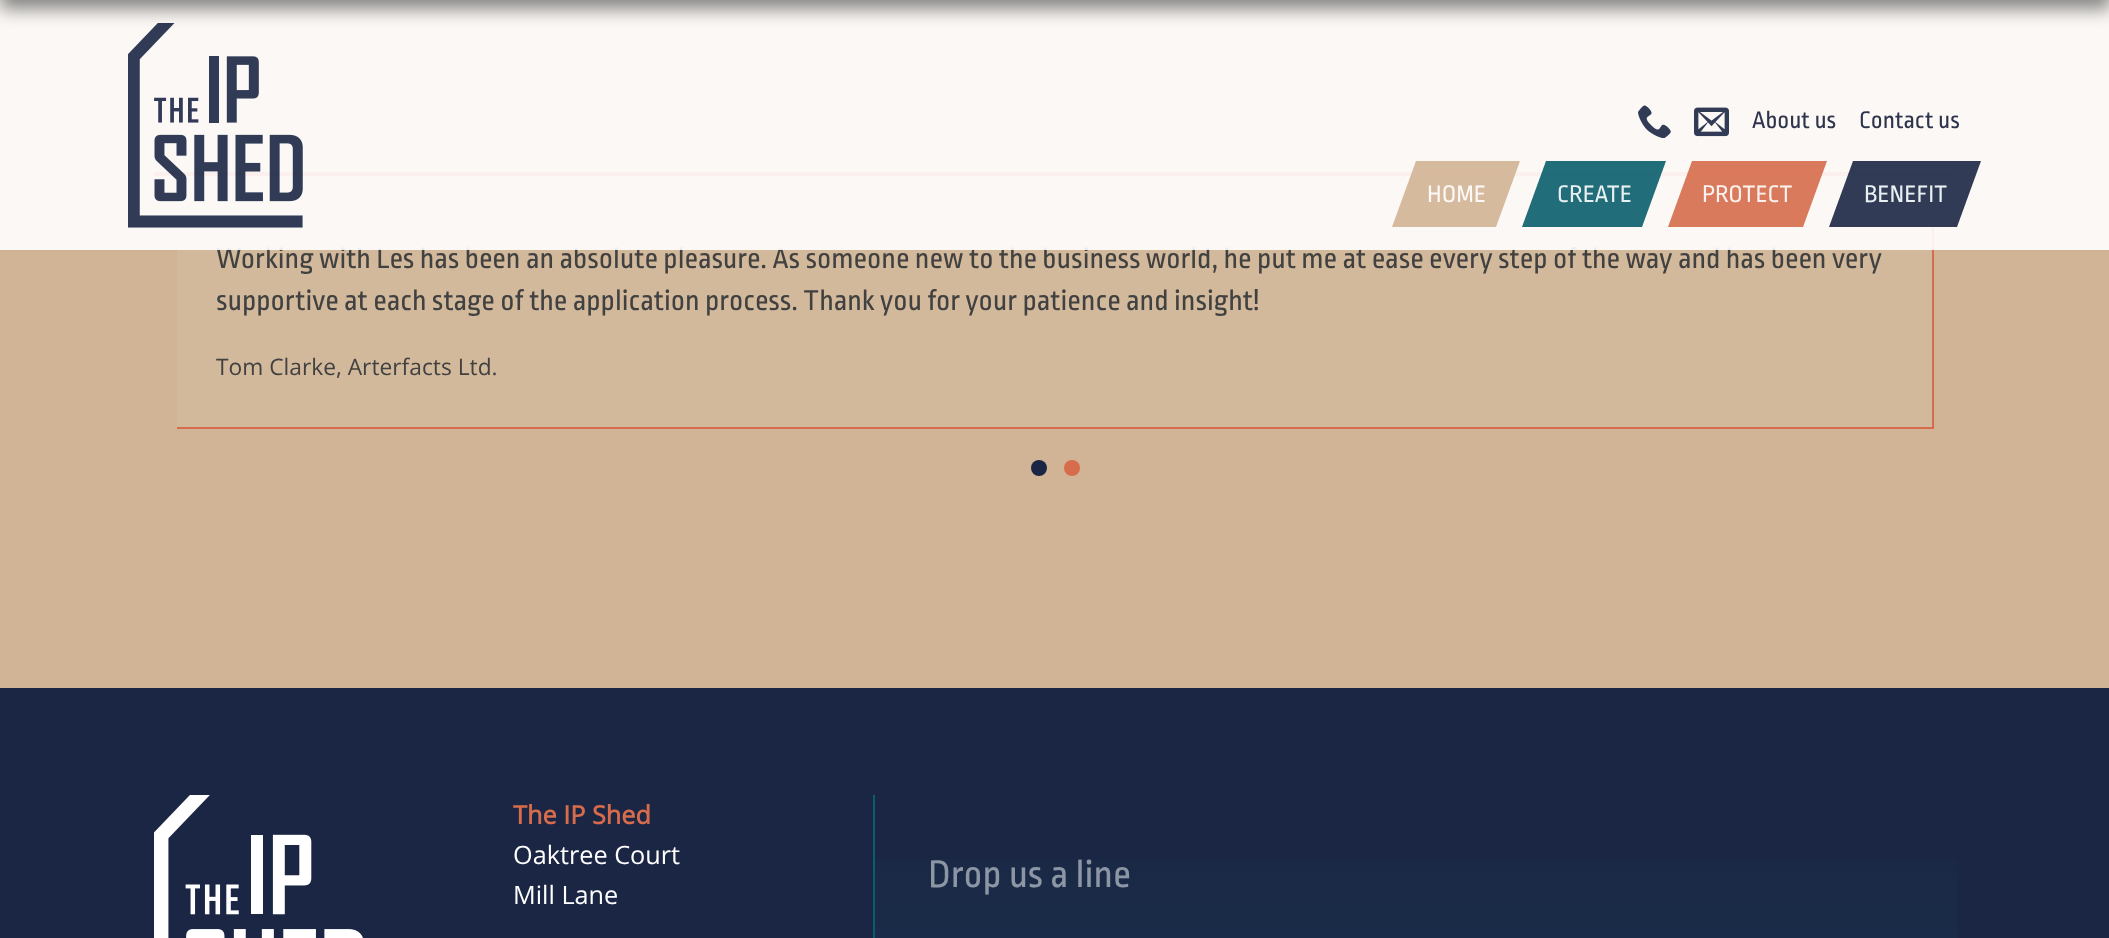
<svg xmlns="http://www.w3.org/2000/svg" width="2109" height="938">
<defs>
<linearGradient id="g1" gradientUnits="userSpaceOnUse" x1="1416" y1="795" x2="1416" y2="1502"><stop offset="0" stop-color="#1b2644" stop-opacity="0.5"/><stop offset="1" stop-color="#0a5d6d" stop-opacity="0.5"/></linearGradient>
</defs>
<rect width="100%" height="100%" fill="#d1b395"/>
<rect x="154" y="172" width="1803" height="4" fill="#d66c4b"/>
<rect x="177" y="198" width="1755" height="229" fill="#d3b99b"/>
<rect x="1932" y="198" width="2" height="231" fill="#d66c4b"/>
<text x="216" y="268" style="font-family:Ropa Sans;font-size:30.15px;fill:#414141">Working with Les has been an absolute pleasure. As someone new to the business world, he put me at ease every step of the way and has been very</text>
<rect width="2109" height="250" fill="#ffffffe6"/>
<image x="128" y="23" width="175" height="205" href="media/1.png"/>
<rect y="-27" width="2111" height="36" fill="#00000078" filter="blur(9px)"/>
<image x="1638" y="105" width="33" height="33" href="media/2.png"/>
<image x="1694" y="107" width="35" height="30" href="media/3.png"/>
<text x="1752" y="128" style="font-family:Ropa Sans;font-size:25.25px;fill:#2d344c">About us</text>
<text x="1859" y="128" style="font-family:Ropa Sans;font-size:25.25px;fill:#2d344c">Contact us</text>
<path d="M1416 161h104l-24 66h-104z" fill="#d1b395e6"/>
<text x="1427" y="202" style="font-family:Ropa Sans;font-size:25.25px;fill:#fbf8f5">HOME</text>
<path d="M1546 161h120l-24 66h-120z" fill="#0a5d6de6"/>
<text x="1557" y="202" style="font-family:Ropa Sans;font-size:25.25px;fill:#e9f0f2">CREATE</text>
<path d="M1692 161h135l-24 66h-135z" fill="#d66c4be6"/>
<text x="1702" y="202" style="font-family:Ropa Sans;font-size:25.25px;fill:#fbf2ef">PROTECT</text>
<path d="M1853 161h128l-24 66h-128z" fill="#1b2644e6"/>
<text x="1864" y="202" style="font-family:Ropa Sans;font-size:25.25px;fill:#e9f0f2">BENEFIT</text>
<rect x="177" y="427" width="1757" height="2" fill="#d66c4b"/>
<text x="216" y="310" style="font-family:Ropa Sans;font-size:30.15px;fill:#414141">supportive at each stage of the application process. Thank you for your patience and insight!</text>
<text x="216" y="375" style="font-family:Open Sans;font-size:22.75px;fill:#414141">Tom Clarke, Arterfacts Ltd.</text>
<circle cx="1039" cy="468" r="8" fill="#1b2644"/>
<circle cx="1072" cy="468" r="8" fill="#d66c4b"/>
<rect y="688" width="2109" height="250" fill="#1b2644"/>
<rect x="873" y="795" width="2" height="143" fill="#0a5d6d"/>
<image x="154" y="795" width="209" height="143" href="media/4.png"/>
<text x="513" y="824" style="font-family:Open Sans;font-size:25.25px;font-weight:bold;fill:#d66c4b">The IP Shed</text>
<text x="513" y="864" style="font-family:Open Sans;font-size:25.25px;fill:#fff">Oaktree Court</text>
<text x="513" y="904" style="font-family:Open Sans;font-size:25.25px;fill:#fff">Mill Lane</text>
<text x="928" y="887" style="font-family:Ropa Sans;font-size:40px;fill:#fff">Drop us a line</text>
<rect x="875" y="859" width="1082" height="79" fill="url(#g1)"/>
</svg>
